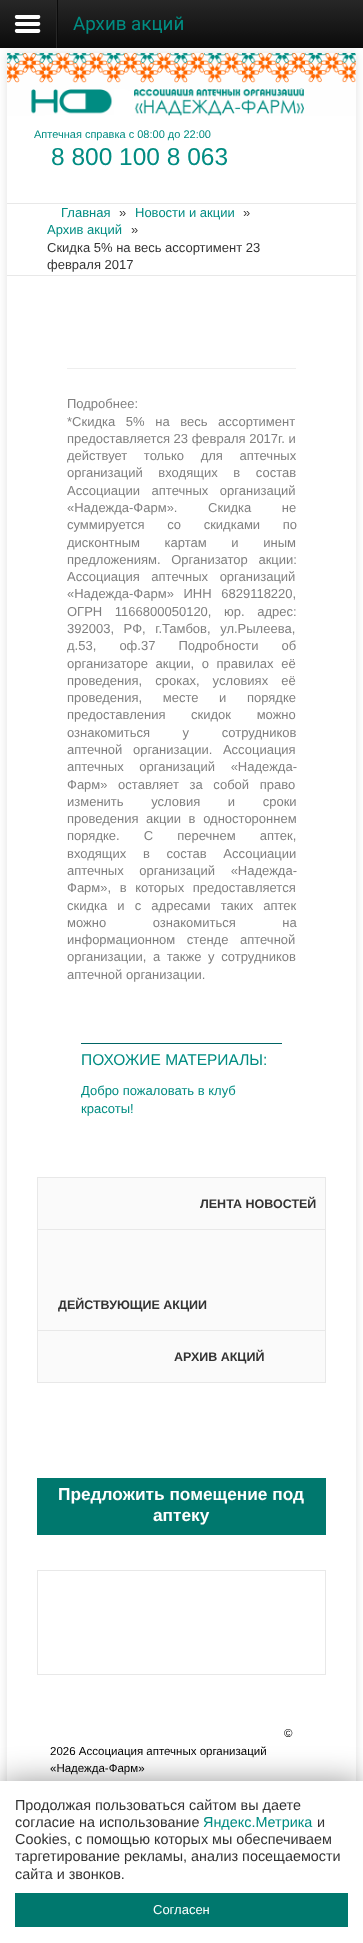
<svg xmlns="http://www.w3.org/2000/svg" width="363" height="1943">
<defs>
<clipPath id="clip1"><path d="M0 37h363v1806h-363zm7 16h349v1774h-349z" clip-rule="evenodd"/></clipPath>
<linearGradient id="g1" gradientUnits="userSpaceOnUse" x1="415" y1="0" x2="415" y2="48"><stop offset="0" stop-color="#272727"/><stop offset="1" stop-color="#0b0b0b"/></linearGradient>
</defs>
<rect width="100%" height="100%" fill="#fff"/>
<g clip-path="url(#clip1)">
<rect x="7" y="53" width="349" height="1774" fill="#0000001f" filter="blur(5px)"/>
</g>
<rect width="363" height="48" fill="url(#g1)"/>
<rect x="57" width="1" height="48" fill="#0b0b0b"/>
<image x="14" y="15" width="27" height="18" href="media/1.png"/>
<rect x="56" width="1" height="48" fill="#272727"/>
<text x="73" y="30" style="font-family:Roboto;font-size:18.75px;fill:#008c82">Архив акций</text>
<image x="7" y="53" width="349" height="63" href="media/2.png"/>
<text x="34" y="138" style="font-family:Liberation Sans;font-size:11px;fill:#008c82">Аптечная справка с 08:00 до 22:00</text>
<text x="51" y="165" style="font-family:Liberation Sans;font-size:24.5px;fill:#008c82">8 800 100 8 063</text>
<rect x="7" y="203" width="349" height="1" fill="#e8e8e8"/>
<rect x="7" y="275" width="349" height="1" fill="#e8e8e8"/>
<text x="61" y="217" style="font-family:Liberation Sans;font-size:13px;fill:#008c82">Главная</text>
<text x="119" y="217" style="font-family:Liberation Sans;font-size:13px;fill:#333">»</text>
<text x="135" y="217" style="font-family:Liberation Sans;font-size:13px;fill:#008c82">Новости и акции</text>
<text x="243" y="217" style="font-family:Liberation Sans;font-size:13px;fill:#333">»</text>
<text x="47" y="234" style="font-family:Liberation Sans;font-size:13px;fill:#008c82">Архив акций</text>
<text x="131" y="234" style="font-family:Liberation Sans;font-size:13px;fill:#333">»</text>
<text x="47" y="252" style="font-family:Liberation Sans;font-size:13px;fill:#333">Скидка 5% на весь ассортимент 23</text>
<text x="47" y="269" style="font-family:Liberation Sans;font-size:13px;fill:#333">февраля 2017</text>
<rect x="67" y="368" width="229" height="1" fill="#eee"/>
<text x="67" y="408" style="font-family:Liberation Sans;font-size:13px;fill:#808080">Подробнее:</text>
<text x="67" y="426" word-spacing="7" style="font-family:Liberation Sans;font-size:13px;fill:#808080">*Скидка 5% на весь ассортимент</text>
<text x="67" y="443" style="font-family:Liberation Sans;font-size:13px;fill:#808080">предоставляется 23 февраля 2017г. и</text>
<text x="67" y="460" word-spacing="13" style="font-family:Liberation Sans;font-size:13px;fill:#808080">действует только для аптечных</text>
<text x="67" y="477" word-spacing="12" style="font-family:Liberation Sans;font-size:13px;fill:#808080">организаций входящих в состав</text>
<text x="67" y="495" word-spacing="8" style="font-family:Liberation Sans;font-size:13px;fill:#808080">Ассоциации аптечных организаций</text>
<text x="67" y="512" word-spacing="27" style="font-family:Liberation Sans;font-size:13px;fill:#808080">«Надежда-Фарм». Скидка не</text>
<text x="67" y="529" word-spacing="19" style="font-family:Liberation Sans;font-size:13px;fill:#808080">суммируется со скидками по</text>
<text x="67" y="547" word-spacing="21" style="font-family:Liberation Sans;font-size:13px;fill:#808080">дисконтным картам и иным</text>
<text x="67" y="564" word-spacing="7" style="font-family:Liberation Sans;font-size:13px;fill:#808080">предложениям. Организатор акции:</text>
<text x="67" y="581" word-spacing="8" style="font-family:Liberation Sans;font-size:13px;fill:#808080">Ассоциация аптечных организаций</text>
<text x="67" y="598" word-spacing="6" style="font-family:Liberation Sans;font-size:13px;fill:#808080">«Надежда-Фарм» ИНН 6829118220,</text>
<text x="67" y="616" word-spacing="9" style="font-family:Liberation Sans;font-size:13px;fill:#808080">ОГРН 1166800050120, юр. адрес:</text>
<text x="67" y="633" word-spacing="6" style="font-family:Liberation Sans;font-size:13px;fill:#808080">392003, РФ, г.Тамбов, ул.Рылеева,</text>
<text x="67" y="650" word-spacing="19.5" style="font-family:Liberation Sans;font-size:13px;fill:#808080">д.53, оф.37 Подробности об</text>
<text x="67" y="668" word-spacing="4" style="font-family:Liberation Sans;font-size:13px;fill:#808080">организаторе акции, о правилах её</text>
<text x="67" y="685" word-spacing="9.5" style="font-family:Liberation Sans;font-size:13px;fill:#808080">проведения, сроках, условиях её</text>
<text x="67" y="702" word-spacing="17" style="font-family:Liberation Sans;font-size:13px;fill:#808080">проведения, месте и порядке</text>
<text x="67" y="719" word-spacing="22" style="font-family:Liberation Sans;font-size:13px;fill:#808080">предоставления скидок можно</text>
<text x="67" y="737" word-spacing="29" style="font-family:Liberation Sans;font-size:13px;fill:#808080">ознакомиться у сотрудников</text>
<text x="67" y="754" word-spacing="7" style="font-family:Liberation Sans;font-size:13px;fill:#808080">аптечной организации. Ассоциация</text>
<text x="67" y="771" word-spacing="12" style="font-family:Liberation Sans;font-size:13px;fill:#808080">аптечных организаций «Надежда-</text>
<text x="67" y="789" word-spacing="7" style="font-family:Liberation Sans;font-size:13px;fill:#808080">Фарм» оставляет за собой право</text>
<text x="67" y="806" word-spacing="24" style="font-family:Liberation Sans;font-size:13px;fill:#808080">изменить условия и сроки</text>
<text x="67" y="823" word-spacing="4" style="font-family:Liberation Sans;font-size:13px;fill:#808080">проведения акции в одностороннем</text>
<text x="67" y="840" word-spacing="20.5" style="font-family:Liberation Sans;font-size:13px;fill:#808080">порядке. С перечнем аптек,</text>
<text x="67" y="858" word-spacing="13" style="font-family:Liberation Sans;font-size:13px;fill:#808080">входящих в состав Ассоциации</text>
<text x="67" y="875" word-spacing="12" style="font-family:Liberation Sans;font-size:13px;fill:#808080">аптечных организаций «Надежда-</text>
<text x="67" y="892" word-spacing="5" style="font-family:Liberation Sans;font-size:13px;fill:#808080">Фарм», в которых предоставляется</text>
<text x="67" y="910" word-spacing="6.5" style="font-family:Liberation Sans;font-size:13px;fill:#808080">скидка и с адресами таких аптек</text>
<text x="67" y="927" word-spacing="43" style="font-family:Liberation Sans;font-size:13px;fill:#808080">можно ознакомиться на</text>
<text x="67" y="944" word-spacing="8" style="font-family:Liberation Sans;font-size:13px;fill:#808080">информационном стенде аптечной</text>
<text x="67" y="961" word-spacing="3" style="font-family:Liberation Sans;font-size:13px;fill:#808080">организации, а также у сотрудников</text>
<text x="67" y="979" style="font-family:Liberation Sans;font-size:13px;fill:#808080">аптечной организации.</text>
<rect x="81" y="1043" width="201" height="1" fill="#006464"/>
<text x="81" y="1065" style="font-family:Liberation Sans;font-size:15.5px;fill:#008c82">ПОХОЖИЕ МАТЕРИАЛЫ:</text>
<text x="81" y="1095" style="font-family:Liberation Sans;font-size:13px;fill:#008c82">Добро пожаловать в клуб</text>
<text x="81" y="1113" style="font-family:Liberation Sans;font-size:13px;fill:#008c82">красоты!</text>
<rect x="325" y="1177" width="1" height="206" fill="#e8e8e8"/>
<rect x="37" y="1382" width="289" height="1" fill="#e8e8e8"/>
<rect x="37" y="1177" width="1" height="206" fill="#e8e8e8"/>
<rect x="38" y="1178" width="287" height="51" fill="#fafafa"/>
<rect x="38" y="1177" width="287" height="1" fill="#e8e8e8"/>
<text x="200" y="1208" style="font-family:Liberation Sans;font-size:12.5px;font-weight:bold;fill:#333">ЛЕНТА НОВОСТЕЙ</text>
<rect x="38" y="1230" width="287" height="100" fill="#fafafa"/>
<rect x="38" y="1229" width="287" height="1" fill="#e8e8e8"/>
<text x="58" y="1309" style="font-family:Liberation Sans;font-size:12.5px;font-weight:bold;fill:#333">ДЕЙСТВУЮЩИЕ АКЦИИ</text>
<rect x="38" y="1331" width="287" height="51" fill="#fafafa"/>
<rect x="38" y="1330" width="287" height="1" fill="#e8e8e8"/>
<text x="174" y="1361" style="font-family:Liberation Sans;font-size:12.5px;font-weight:bold;fill:#333">АРХИВ АКЦИЙ</text>
<rect x="37" y="1478" width="289" height="57" fill="#00786e"/>
<text x="58" y="1500" style="font-family:Liberation Sans;font-size:17.3px;font-weight:bold;fill:#fff">Предложить помещение под</text>
<text x="153" y="1521" style="font-family:Liberation Sans;font-size:17.3px;font-weight:bold;fill:#fff">аптеку</text>
<rect x="37.5" y="1570.5" width="288" height="104" fill="none" stroke="#e8e8e8"/>
<text x="284" y="1737" style="font-family:Liberation Sans;font-size:11.5px;fill:#000">©</text>
<text x="50" y="1755" style="font-family:Liberation Sans;font-size:11.5px;fill:#000">2026 Ассоциация аптечных организаций</text>
<text x="50" y="1772" style="font-family:Liberation Sans;font-size:11.5px;fill:#000">«Надежда-Фарм»</text>
<rect y="1785" width="363" height="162" fill="#00000080" filter="blur(17px)"/>
<rect y="1781" width="363" height="162" fill="#fff"/>
<text x="15" y="1810" style="font-family:Liberation Sans;font-size:14.4px;fill:#333">Продолжая пользоваться сайтом вы даете</text>
<text x="15" y="1827" style="font-family:Liberation Sans;font-size:14.4px;fill:#333">согласие на использование</text>
<text x="203" y="1827" style="font-family:Liberation Sans;font-size:14.4px;fill:#008c82">Яндекс.Метрика</text>
<text x="317" y="1827" style="font-family:Liberation Sans;font-size:14.4px;fill:#333">и</text>
<text x="15" y="1844" style="font-family:Liberation Sans;font-size:14.4px;fill:#333">Cookies, с помощью которых мы обеспечиваем</text>
<text x="15" y="1861" style="font-family:Liberation Sans;font-size:14.4px;fill:#333">таргетирование рекламы, анализ посещаемости</text>
<text x="15" y="1879" style="font-family:Liberation Sans;font-size:14.4px;fill:#333">сайта и звонков.</text>
<rect x="15" y="1893" width="333" height="34" fill="#00786e"/>
<text x="153" y="1914" style="font-family:Liberation Sans;font-size:13px;fill:#fff">Согласен</text>
</svg>
